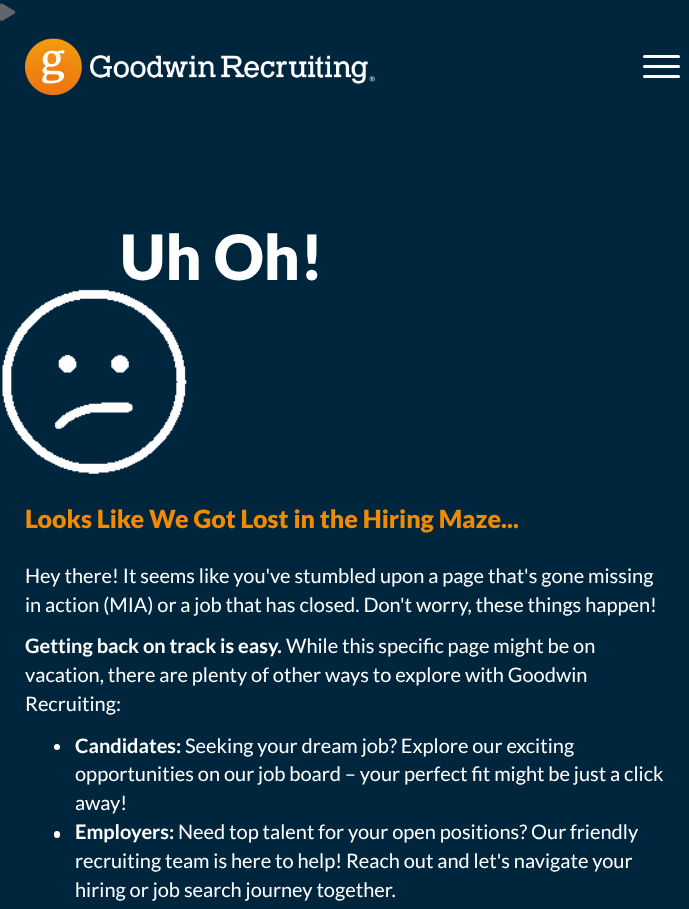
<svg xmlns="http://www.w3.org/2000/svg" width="689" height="909">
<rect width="100%" height="100%" fill="#00263e"/>
<image x="25" y="38" width="350" height="57" href="media/1.png"/>
<rect x="643" y="65" width="37" height="3" rx="1.5" fill="#fff"/>
<rect x="643" y="55" width="37" height="3" rx="1.5" fill="#fff"/>
<rect x="643" y="75" width="37" height="3" rx="1.5" fill="#fff"/>
<image x="0" y="3" width="16" height="18" href="media/2.png"/>
<text x="120" y="280" style="font-family:Lato;font-size:62.5px;font-weight:900;fill:#fff">Uh Oh!</text>
<image x="2" y="289" width="185" height="185" href="media/3.png"/>
<text x="25" y="528" style="font-family:Lato;font-size:25px;font-weight:900;fill:#f18a00">Looks Like We Got Lost in the Hiring Maze...</text>
<text x="25" y="583" style="font-family:Lato;font-size:20px;fill:#fff">Hey there! It seems like you've stumbled upon a page that's gone missing</text>
<text x="25" y="612" style="font-family:Lato;font-size:20px;fill:#fff">in action (MIA) or a job that has closed. Don't worry, these things happen!</text>
<text x="25" y="653" style="font-family:Lato;font-size:20px;font-weight:bold;fill:#fff">Getting back on track is easy.</text>
<text x="286" y="653" style="font-family:Lato;font-size:20px;fill:#fff">While this specific page might be on</text>
<text x="25" y="682" style="font-family:Lato;font-size:20px;fill:#fff">vacation, there are plenty of other ways to explore with Goodwin</text>
<text x="25" y="711" style="font-family:Lato;font-size:20px;fill:#fff">Recruiting:</text>
<circle cx="57" cy="747" r="3" fill="#fff"/>
<text x="75" y="753" style="font-family:Lato;font-size:20px;font-weight:bold;fill:#fff">Candidates:</text>
<text x="185" y="753" style="font-family:Lato;font-size:20px;fill:#fff">Seeking your dream job? Explore our exciting</text>
<text x="75" y="781" style="font-family:Lato;font-size:20px;fill:#fff">opportunities on our job board – your perfect fit might be just a click</text>
<text x="75" y="810" style="font-family:Lato;font-size:20px;fill:#fff">away!</text>
<rect x="54" y="831" width="6" height="7" rx="3" fill="#fff"/>
<text x="75" y="839" style="font-family:Lato;font-size:20px;font-weight:bold;fill:#fff">Employers:</text>
<text x="178" y="839" style="font-family:Lato;font-size:20px;fill:#fff">Need top talent for your open positions? Our friendly</text>
<text x="75" y="868" style="font-family:Lato;font-size:20px;fill:#fff">recruiting team is here to help! Reach out and let's navigate your</text>
<text x="75" y="897" style="font-family:Lato;font-size:20px;fill:#fff">hiring or job search journey together.</text>
</svg>
